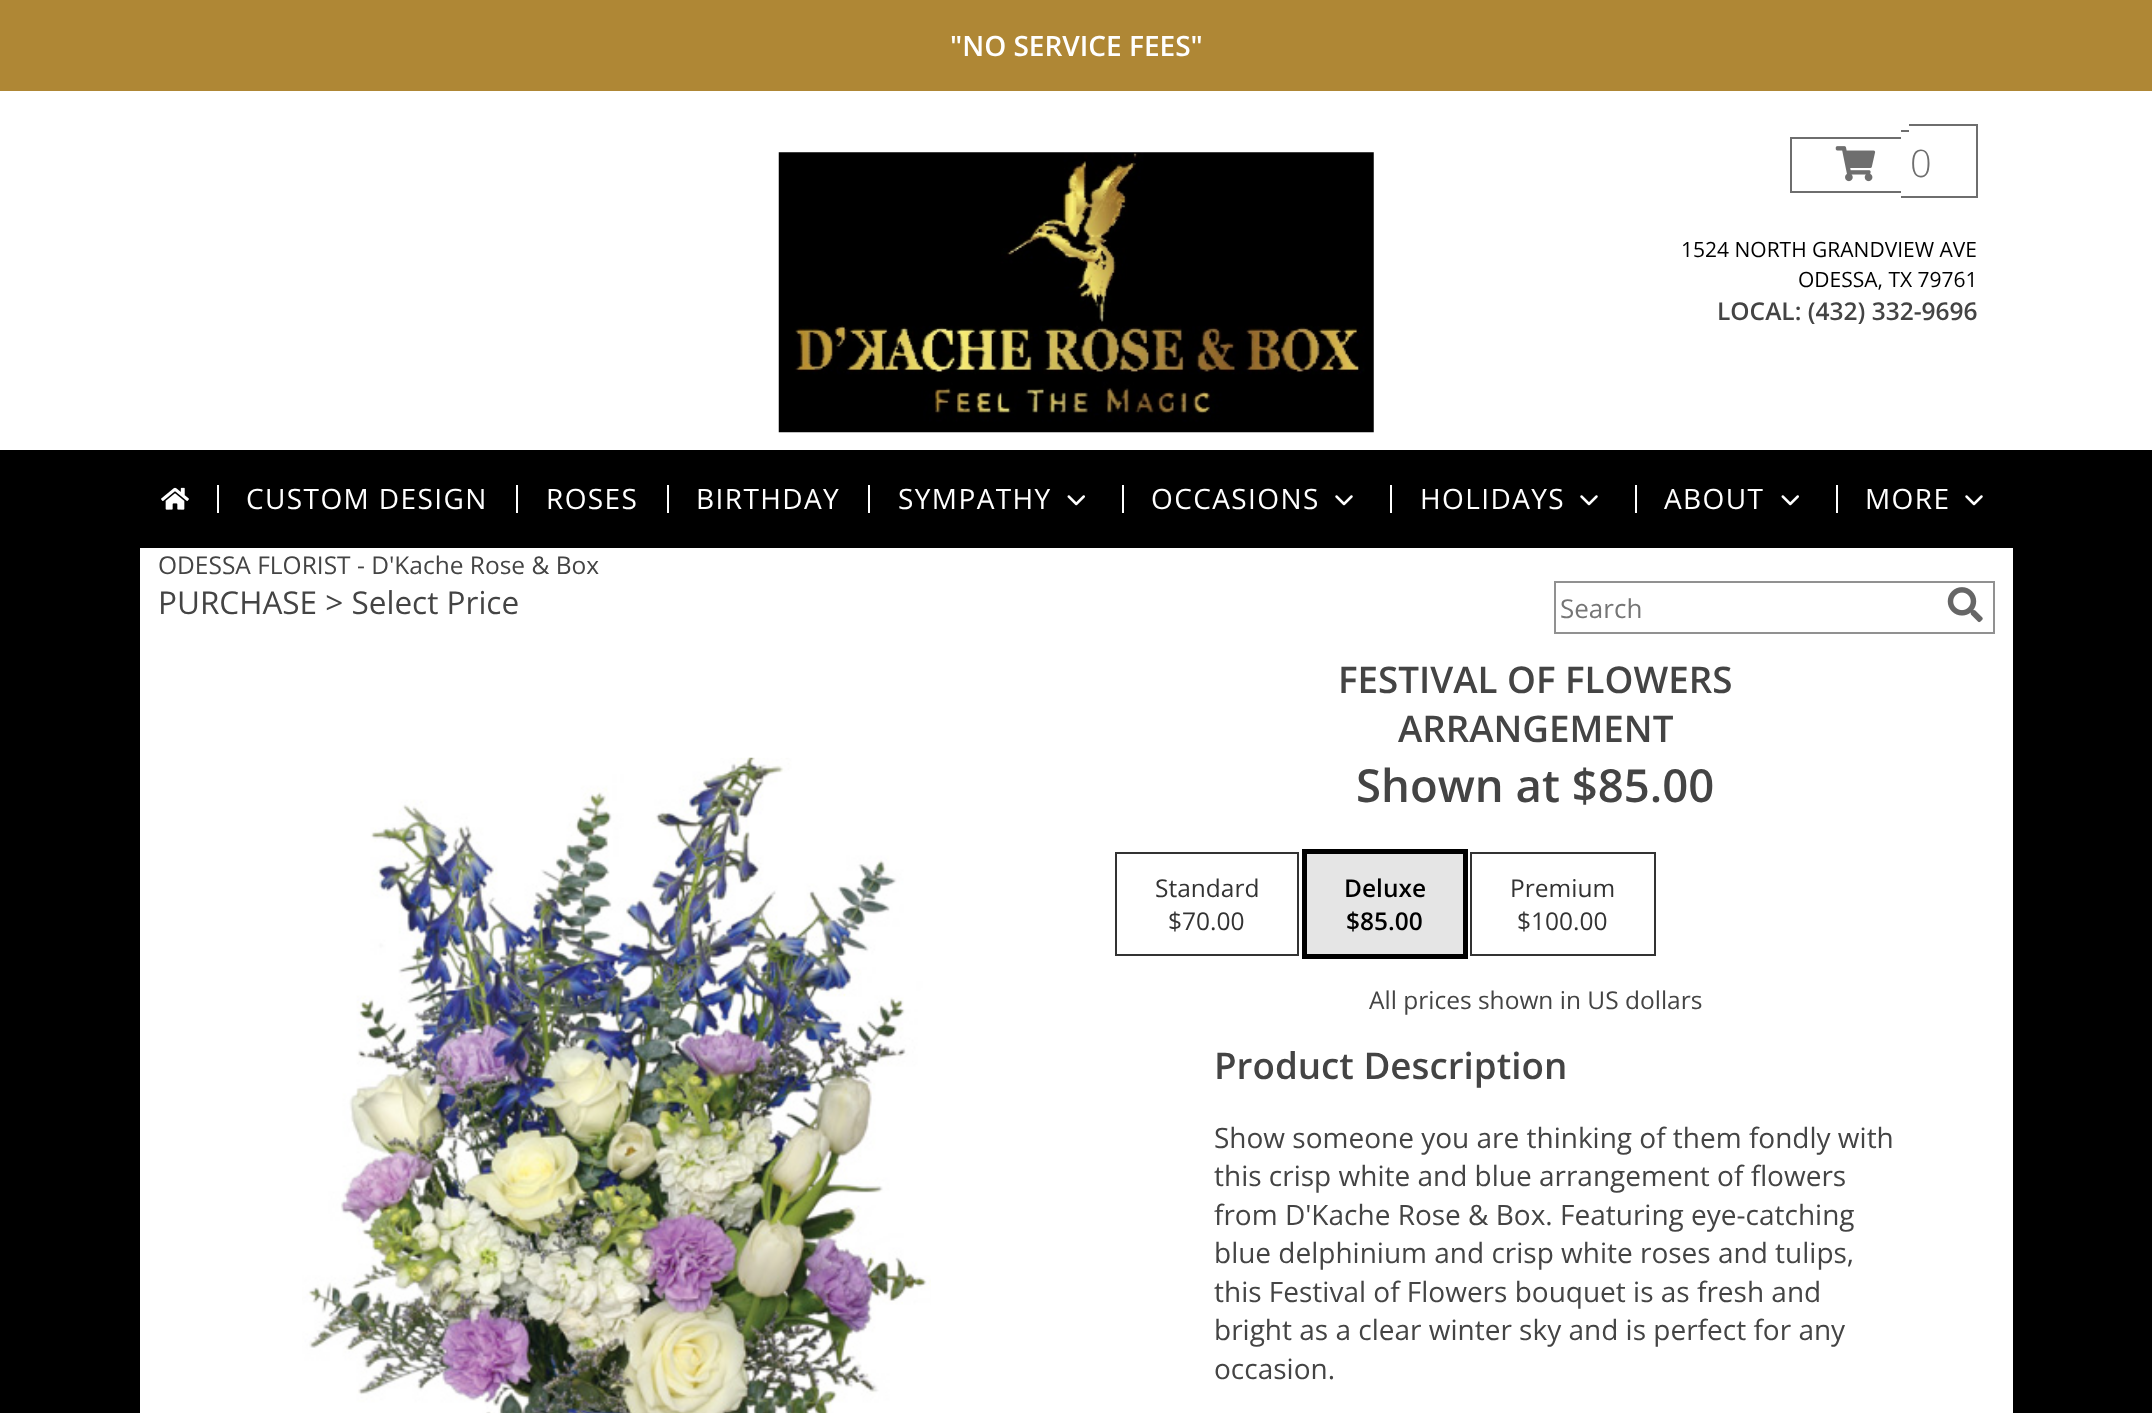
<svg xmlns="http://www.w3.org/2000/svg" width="2152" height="1413">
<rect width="100%" height="100%" fill="#000"/>
<rect x="140" y="548" width="1873" height="865" fill="#fff"/>
<rect width="2152" height="91" fill="#af8735"/>
<text x="950" y="56" style="font-family:Open Sans;font-size:28px;font-weight:600;fill:#fff">"NO SERVICE FEES"</text>
<rect y="91" width="2152" height="359" fill="#fff"/>
<image x="778" y="152" width="596" height="281" href="media/1.png"/>
<rect x="1790" y="137" width="111" height="2" fill="#6e6e6e"/>
<rect x="1790" y="191" width="111" height="2" fill="#6e6e6e"/>
<rect x="1790" y="137" width="2" height="56" fill="#6e6e6e"/>
<rect x="1901" y="130" width="8" height="2" fill="#6e6e6e"/>
<rect x="1901" y="196" width="8" height="2" fill="#6e6e6e"/>
<rect x="1909" y="124" width="69" height="2" fill="#6e6e6e"/>
<rect x="1976" y="124" width="2" height="74" fill="#6e6e6e"/>
<rect x="1909" y="196" width="69" height="2" fill="#6e6e6e"/>
<image x="1835" y="146" width="41" height="36" href="media/2.png"/>
<text x="1910" y="177" style="font-family:Open Sans;font-size:38px;font-weight:300;fill:#6e6e6e">0</text>
<text x="1681" y="257" style="font-family:Open Sans;font-size:21px;fill:#000">1524 NORTH GRANDVIEW AVE</text>
<text x="1798" y="287" style="font-family:Open Sans;font-size:21px;fill:#000">ODESSA, TX 79761</text>
<text x="1717" y="320" style="font-family:Open Sans;font-size:24.5px;font-weight:600;fill:#444">LOCAL: (432) 332-9696</text>
<image x="161" y="487" width="28" height="23" href="media/3.png"/>
<rect x="217" y="485" width="2" height="28" fill="#fff"/>
<text x="246" y="509" style="font-family:Open Sans;font-size:28px;letter-spacing:1.4px;fill:#fff">CUSTOM DESIGN</text>
<rect x="516" y="485" width="2" height="28" fill="#fff"/>
<text x="546" y="509" style="font-family:Open Sans;font-size:28px;letter-spacing:1.4px;fill:#fff">ROSES</text>
<rect x="667" y="485" width="2" height="28" fill="#fff"/>
<text x="696" y="509" style="font-family:Open Sans;font-size:28px;letter-spacing:1.4px;fill:#fff">BIRTHDAY</text>
<rect x="868" y="485" width="2" height="28" fill="#fff"/>
<text x="898" y="509" style="font-family:Open Sans;font-size:28px;letter-spacing:1.4px;fill:#fff">SYMPATHY</text>
<image x="1067" y="495" width="18" height="11" href="media/4.png"/>
<rect x="1122" y="485" width="2" height="28" fill="#fff"/>
<text x="1151" y="509" style="font-family:Open Sans;font-size:28px;letter-spacing:1.4px;fill:#fff">OCCASIONS</text>
<image x="1335" y="495" width="18" height="11" href="media/5.png"/>
<rect x="1390" y="485" width="2" height="28" fill="#fff"/>
<text x="1420" y="509" style="font-family:Open Sans;font-size:28px;letter-spacing:1.4px;fill:#fff">HOLIDAYS</text>
<image x="1580" y="495" width="18" height="11" href="media/5.png"/>
<rect x="1635" y="485" width="2" height="28" fill="#fff"/>
<text x="1664" y="509" style="font-family:Open Sans;font-size:28px;letter-spacing:1.4px;fill:#fff">ABOUT</text>
<image x="1781" y="495" width="18" height="11" href="media/4.png"/>
<rect x="1836" y="485" width="2" height="28" fill="#fff"/>
<text x="1865" y="509" style="font-family:Open Sans;font-size:28px;letter-spacing:1.4px;fill:#fff">MORE</text>
<image x="1965" y="495" width="18" height="11" href="media/5.png"/>
<text x="158" y="574" style="font-family:Open Sans;font-size:24.5px;fill:#444">ODESSA FLORIST - D'Kache Rose &amp; Box</text>
<text x="158" y="614" style="font-family:Open Sans;font-size:31.5px;fill:#444">PURCHASE &gt; Select Price</text>
<rect x="1555" y="582" width="439" height="51" fill="none" stroke="#919191" stroke-width="2"/>
<text x="1560" y="618" style="font-family:Open Sans;font-size:26px;fill:#757575">Search</text>
<image x="1947" y="587" width="36" height="36" href="media/6.png"/>
<image x="302" y="757" width="629" height="656" href="media/7.png"/>
<text x="1338" y="693" style="font-family:Open Sans;font-size:36.75px;font-weight:600;fill:#444">FESTIVAL OF FLOWERS</text>
<text x="1398" y="742" style="font-family:Open Sans;font-size:36.75px;font-weight:600;fill:#444">ARRANGEMENT</text>
<text x="1356" y="802" style="font-family:Open Sans;font-size:45.5px;font-weight:600;fill:#444">Shown at $85.00</text>
<rect x="1116" y="853" width="182" height="102" fill="none" stroke="#333" stroke-width="2"/>
<text x="1155" y="897" style="font-family:Open Sans;font-size:24.5px;fill:#333">Standard</text>
<text x="1168" y="930" style="font-family:Open Sans;font-size:24.5px;fill:#333">$70.00</text>
<rect x="1304.5" y="851.5" width="161" height="105" fill="none" stroke="#000" stroke-width="5"/>
<rect x="1307" y="854" width="156" height="100" fill="#e5e5e5"/>
<text x="1344" y="897" style="font-family:Open Sans;font-size:24.5px;font-weight:600;fill:#000">Deluxe</text>
<text x="1346" y="930" style="font-family:Open Sans;font-size:24.5px;font-weight:600;fill:#000">$85.00</text>
<rect x="1471" y="853" width="184" height="102" fill="none" stroke="#333" stroke-width="2"/>
<text x="1510" y="897" style="font-family:Open Sans;font-size:24.5px;fill:#333">Premium</text>
<text x="1517" y="930" style="font-family:Open Sans;font-size:24.5px;fill:#333">$100.00</text>
<text x="1369" y="1009" style="font-family:Open Sans;font-size:24.5px;fill:#444">All prices shown in US dollars</text>
<text x="1214" y="1079" style="font-family:Open Sans;font-size:36.75px;font-weight:600;fill:#444">Product Description</text>
<text x="1214" y="1148" style="font-family:Open Sans;font-size:28px;fill:#444">Show someone you are thinking of them fondly with</text>
<text x="1214" y="1186" style="font-family:Open Sans;font-size:28px;fill:#444">this crisp white and blue arrangement of flowers</text>
<text x="1214" y="1225" style="font-family:Open Sans;font-size:28px;fill:#444">from D'Kache Rose &amp; Box. Featuring eye-catching</text>
<text x="1214" y="1263" style="font-family:Open Sans;font-size:28px;fill:#444">blue delphinium and crisp white roses and tulips,</text>
<text x="1214" y="1302" style="font-family:Open Sans;font-size:28px;fill:#444">this Festival of Flowers bouquet is as fresh and</text>
<text x="1214" y="1340" style="font-family:Open Sans;font-size:28px;fill:#444">bright as a clear winter sky and is perfect for any</text>
<text x="1214" y="1379" style="font-family:Open Sans;font-size:28px;fill:#444">occasion.</text>
</svg>
